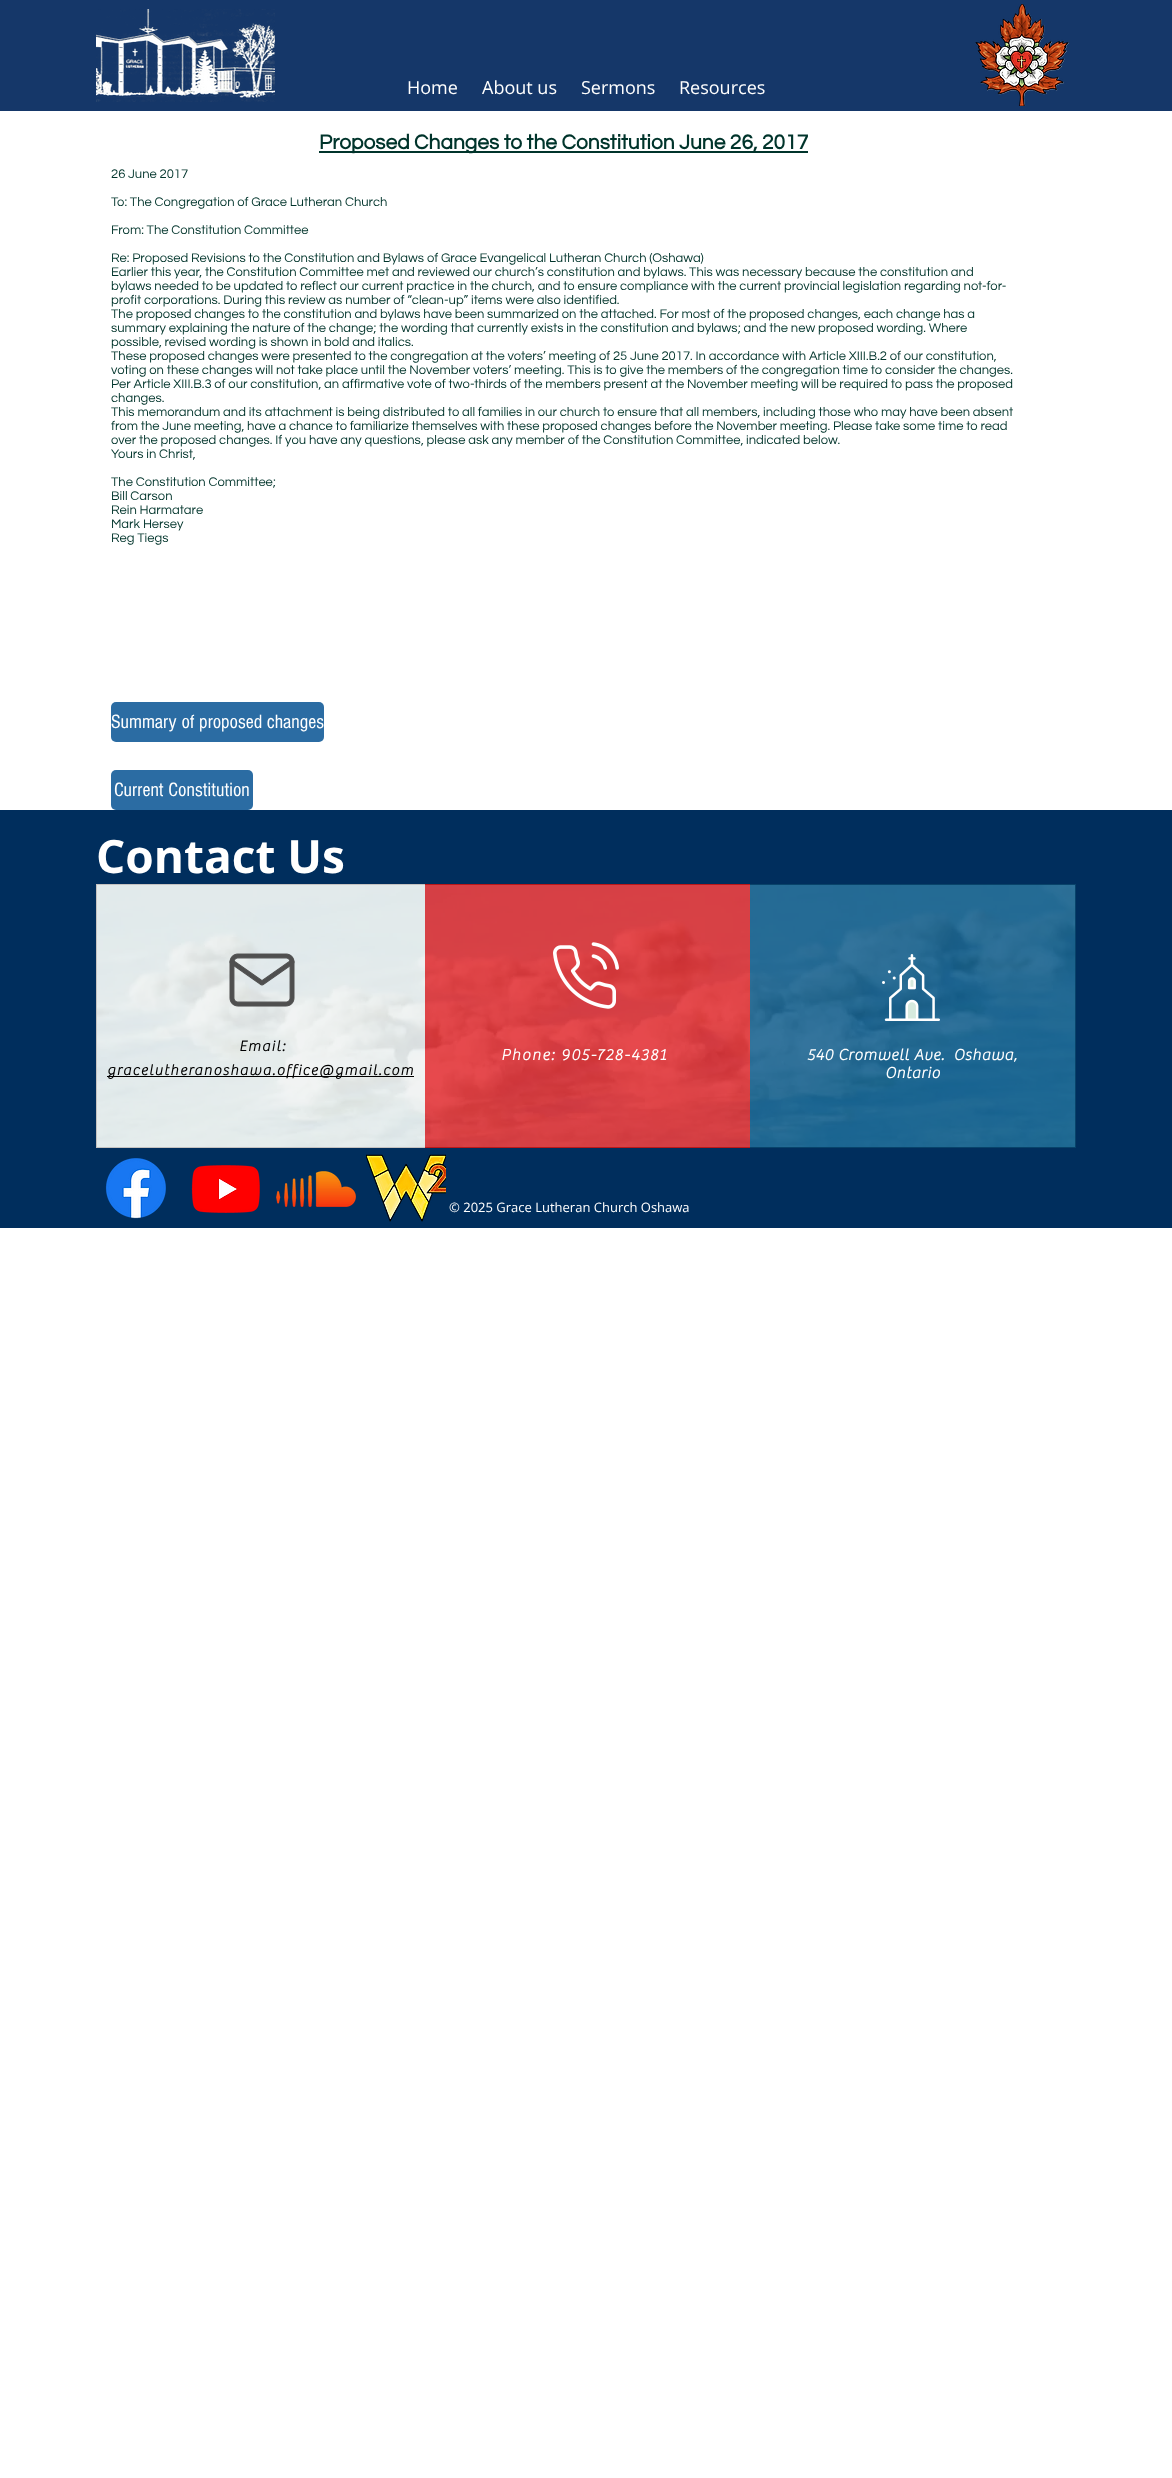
<svg xmlns="http://www.w3.org/2000/svg" width="1172" height="2478">
<rect width="100%" height="100%" fill="#fff"/>
<rect width="1172" height="111" fill="#153769"/>
<image x="96" y="9" width="179" height="93" href="media/1.png"/>
<text x="407" y="94" style="font-family:Open Sans;font-size:18px;fill:#fff">Home</text>
<text x="482" y="94" style="font-family:Open Sans;font-size:18px;fill:#fff">About us</text>
<text x="581" y="94" style="font-family:Open Sans;font-size:18px;fill:#fff">Sermons</text>
<text x="679" y="94" style="font-family:Open Sans;font-size:18px;fill:#fff">Resources</text>
<image x="975" y="4" width="94" height="102" href="media/2.png"/>
<rect x="319" y="151" width="489" height="2" fill="#00342b"/>
<text x="319" y="149" style="font-family:Questrial;font-size:21px;font-weight:bold;fill:#00342b">Proposed Changes to the Constitution June 26, 2017</text>
<text x="111" y="178" style="font-family:Questrial;font-size:13px;fill:#00342b">26 June 2017</text>
<text x="111" y="206" style="font-family:Questrial;font-size:13px;fill:#00342b">To: The Congregation of Grace Lutheran Church</text>
<text x="111" y="234" style="font-family:Questrial;font-size:13px;fill:#00342b">From: The Constitution Committee</text>
<text x="111" y="262" style="font-family:Questrial;font-size:13px;fill:#00342b">Re: Proposed Revisions to the Constitution and Bylaws of Grace Evangelical Lutheran Church (Oshawa)</text>
<text x="111" y="276" style="font-family:Questrial;font-size:13px;fill:#00342b">Earlier this year, the Constitution Committee met and reviewed our church’s constitution and bylaws. This was necessary because the constitution and</text>
<text x="111" y="290" style="font-family:Questrial;font-size:13px;fill:#00342b">bylaws needed to be updated to reflect our current practice in the church, and to ensure compliance with the current provincial legislation regarding not-for-</text>
<text x="111" y="304" style="font-family:Questrial;font-size:13px;fill:#00342b">profit corporations. During this review as number of “clean-up” items were also identified.</text>
<text x="111" y="318" style="font-family:Questrial;font-size:13px;fill:#00342b">The proposed changes to the constitution and bylaws have been summarized on the attached. For most of the proposed changes, each change has a</text>
<text x="111" y="332" style="font-family:Questrial;font-size:13px;fill:#00342b">summary explaining the nature of the change; the wording that currently exists in the constitution and bylaws; and the new proposed wording. Where</text>
<text x="111" y="346" style="font-family:Questrial;font-size:13px;fill:#00342b">possible, revised wording is shown in bold and italics.</text>
<text x="111" y="360" style="font-family:Questrial;font-size:13px;fill:#00342b">These proposed changes were presented to the congregation at the voters’ meeting of 25 June 2017. In accordance with Article XIII.B.2 of our constitution,</text>
<text x="111" y="374" style="font-family:Questrial;font-size:13px;fill:#00342b">voting on these changes will not take place until the November voters’ meeting. This is to give the members of the congregation time to consider the changes.</text>
<text x="111" y="388" style="font-family:Questrial;font-size:13px;fill:#00342b">Per Article XIII.B.3 of our constitution, an affirmative vote of two-thirds of the members present at the November meeting will be required to pass the proposed</text>
<text x="111" y="402" style="font-family:Questrial;font-size:13px;fill:#00342b">changes.</text>
<text x="111" y="416" style="font-family:Questrial;font-size:13px;fill:#00342b">This memorandum and its attachment is being distributed to all families in our church to ensure that all members, including those who may have been absent</text>
<text x="111" y="430" style="font-family:Questrial;font-size:13px;fill:#00342b">from the June meeting, have a chance to familiarize themselves with these proposed changes before the November meeting. Please take some time to read</text>
<text x="111" y="444" style="font-family:Questrial;font-size:13px;fill:#00342b">over the proposed changes. If you have any questions, please ask any member of the Constitution Committee, indicated below.</text>
<text x="111" y="458" style="font-family:Questrial;font-size:13px;fill:#00342b">Yours in Christ,</text>
<text x="111" y="486" style="font-family:Questrial;font-size:13px;fill:#00342b">The Constitution Committee;</text>
<text x="111" y="500" style="font-family:Questrial;font-size:13px;fill:#00342b">Bill Carson</text>
<text x="111" y="514" style="font-family:Questrial;font-size:13px;fill:#00342b">Rein Harmatare</text>
<text x="111" y="528" style="font-family:Questrial;font-size:13px;fill:#00342b">Mark Hersey</text>
<text x="111" y="542" style="font-family:Questrial;font-size:13px;fill:#00342b">Reg Tiegs</text>
<rect x="111" y="702" width="213" height="40" rx="5" fill="#2b6ca3"/>
<text x="111" y="728" style="font-family:'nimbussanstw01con';font-size:20px;fill:#fff">Summary of proposed changes</text>
<rect x="111" y="770" width="142" height="40" rx="5" fill="#2b6ca3"/>
<text x="114" y="796" style="font-family:'nimbussanstw01con';font-size:20px;fill:#fff">Current Constitution</text>
<rect y="810" width="1172" height="418" fill="#002e5d"/>
<text x="96" y="873" style="font-family:Open Sans;font-size:46px;font-weight:bold;fill:#fff">Contact Us</text>
<rect x="96.5" y="884.5" width="979" height="263" fill="none" stroke="#1d0e03"/>
<image x="97" y="885" width="978" height="262" href="media/3.png"/>
<rect x="96" y="884" width="329" height="264" fill="#f0f0f0cc"/>
<image x="229" y="953" width="66" height="54" href="media/4.png"/>
<text x="239" y="1051" style="font-family:'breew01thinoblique';font-size:15px;font-weight:bold;letter-spacing:1.5px;fill:#000">Email:</text>
<rect x="107" y="1076" width="307" height="1" fill="#000"/>
<text x="107" y="1075" style="font-family:'breew01thinoblique';font-size:15px;font-weight:bold;letter-spacing:1.5px;fill:#000">gracelutheranoshawa.office@gmail.com</text>
<rect x="425" y="884" width="325" height="264" fill="#e21c21cc"/>
<image x="553" y="942" width="66" height="67" href="media/5.png"/>
<text x="501" y="1060" style="font-family:'breew01thinoblique';font-size:16px;font-weight:bold;letter-spacing:1.6px;fill:#fff">Phone: 905-728-4381</text>
<rect x="750" y="884" width="326" height="264" fill="#045184cc"/>
<image x="882" y="954" width="58" height="67" href="media/6.png"/>
<text x="807" y="1060" style="font-family:'breew01thinoblique';font-size:16px;font-weight:bold;letter-spacing:0.8px;fill:#fff" xml:space="preserve">540 Cromwell Ave.  Oshawa,</text>
<text x="885" y="1078" style="font-family:'breew01thinoblique';font-size:16px;font-weight:bold;letter-spacing:0.8px;fill:#fff">Ontario</text>
<image x="105" y="1158" width="61" height="61" href="media/7.png"/>
<image x="191" y="1165" width="69" height="48" href="media/8.png"/>
<image x="276" y="1171" width="80" height="36" href="media/9.png"/>
<image x="366" y="1154" width="80" height="68" href="media/10.png"/>
<text x="449" y="1212" style="font-family:Open Sans;font-size:13px;fill:#fff">© 2025 Grace Lutheran Church Oshawa</text>
</svg>
